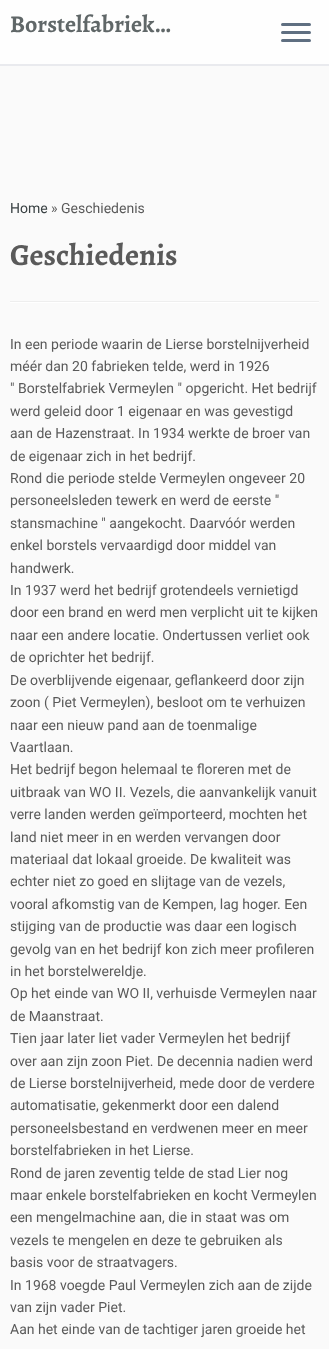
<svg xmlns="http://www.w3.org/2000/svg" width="329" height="1349">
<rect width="100%" height="100%" fill="#fafafa"/>
<rect width="329" height="64" fill="#fefefe"/>
<rect y="64" width="329" height="2" fill="#e9eaee"/>
<text x="10" y="32" style="font-family:Alegreya;font-size:24px;font-weight:bold;fill:#606768">Borstelfabriek…</text>
<rect x="281" y="23" width="30" height="3" rx="1.5" fill="#5f6f81"/>
<rect x="281" y="31" width="30" height="3" rx="1.5" fill="#5f6f81"/>
<rect x="281" y="39" width="30" height="3" rx="1.5" fill="#5f6f81"/>
<text x="10" y="213" style="font-family:Roboto;font-size:14px;fill:#394143">Home</text>
<text x="51" y="213" style="font-family:Roboto;font-size:14px;fill:#5a5a5a">» Geschiedenis</text>
<text x="10" y="265" style="font-family:Alegreya;font-size:30.5px;font-weight:bold;fill:#5a5a5a">Geschiedenis</text>
<rect x="10" y="301" width="309" height="1" fill="#eee"/>
<rect x="10" y="302" width="309" height="1" fill="#fff"/>
<text x="10" y="349" style="font-family:Roboto;font-size:14px;fill:#5a5a5a">In een periode waarin de Lierse borstelnijverheid</text>
<text x="10" y="371" style="font-family:Roboto;font-size:14px;fill:#5a5a5a">méér dan 20 fabrieken telde, werd in 1926</text>
<text x="10" y="393" style="font-family:Roboto;font-size:14px;fill:#5a5a5a">" Borstelfabriek Vermeylen " opgericht. Het bedrijf</text>
<text x="10" y="416" style="font-family:Roboto;font-size:14px;fill:#5a5a5a">werd geleid door 1 eigenaar en was gevestigd</text>
<text x="10" y="438" style="font-family:Roboto;font-size:14px;fill:#5a5a5a">aan de Hazenstraat. In 1934 werkte de broer van</text>
<text x="10" y="461" style="font-family:Roboto;font-size:14px;fill:#5a5a5a">de eigenaar zich in het bedrijf.</text>
<text x="10" y="483" style="font-family:Roboto;font-size:14px;fill:#5a5a5a">Rond die periode stelde Vermeylen ongeveer 20</text>
<text x="10" y="505" style="font-family:Roboto;font-size:14px;fill:#5a5a5a">personeelsleden tewerk en werd de eerste "</text>
<text x="10" y="528" style="font-family:Roboto;font-size:14px;fill:#5a5a5a">stansmachine " aangekocht. Daarvóór werden</text>
<text x="10" y="550" style="font-family:Roboto;font-size:14px;fill:#5a5a5a">enkel borstels vervaardigd door middel van</text>
<text x="10" y="573" style="font-family:Roboto;font-size:14px;fill:#5a5a5a">handwerk.</text>
<text x="10" y="595" style="font-family:Roboto;font-size:14px;fill:#5a5a5a">In 1937 werd het bedrijf grotendeels vernietigd</text>
<text x="10" y="617" style="font-family:Roboto;font-size:14px;fill:#5a5a5a">door een brand en werd men verplicht uit te kijken</text>
<text x="10" y="640" style="font-family:Roboto;font-size:14px;fill:#5a5a5a">naar een andere locatie. Ondertussen verliet ook</text>
<text x="10" y="662" style="font-family:Roboto;font-size:14px;fill:#5a5a5a">de oprichter het bedrijf.</text>
<text x="10" y="685" style="font-family:Roboto;font-size:14px;fill:#5a5a5a">De overblijvende eigenaar, geflankeerd door zijn</text>
<text x="10" y="707" style="font-family:Roboto;font-size:14px;fill:#5a5a5a">zoon ( Piet Vermeylen), besloot om te verhuizen</text>
<text x="10" y="730" style="font-family:Roboto;font-size:14px;fill:#5a5a5a">naar een nieuw pand aan de toenmalige</text>
<text x="10" y="752" style="font-family:Roboto;font-size:14px;fill:#5a5a5a">Vaartlaan.</text>
<text x="10" y="774" style="font-family:Roboto;font-size:14px;fill:#5a5a5a">Het bedrijf begon helemaal te floreren met de</text>
<text x="10" y="797" style="font-family:Roboto;font-size:14px;fill:#5a5a5a">uitbraak van WO II. Vezels, die aanvankelijk vanuit</text>
<text x="10" y="819" style="font-family:Roboto;font-size:14px;fill:#5a5a5a">verre landen werden geïmporteerd, mochten het</text>
<text x="10" y="842" style="font-family:Roboto;font-size:14px;fill:#5a5a5a">land niet meer in en werden vervangen door</text>
<text x="10" y="864" style="font-family:Roboto;font-size:14px;fill:#5a5a5a">materiaal dat lokaal groeide. De kwaliteit was</text>
<text x="10" y="886" style="font-family:Roboto;font-size:14px;fill:#5a5a5a">echter niet zo goed en slijtage van de vezels,</text>
<text x="10" y="909" style="font-family:Roboto;font-size:14px;fill:#5a5a5a">vooral afkomstig van de Kempen, lag hoger. Een</text>
<text x="10" y="931" style="font-family:Roboto;font-size:14px;fill:#5a5a5a">stijging van de productie was daar een logisch</text>
<text x="10" y="954" style="font-family:Roboto;font-size:14px;fill:#5a5a5a">gevolg van en het bedrijf kon zich meer profileren</text>
<text x="10" y="976" style="font-family:Roboto;font-size:14px;fill:#5a5a5a">in het borstelwereldje.</text>
<text x="10" y="998" style="font-family:Roboto;font-size:14px;fill:#5a5a5a">Op het einde van WO II, verhuisde Vermeylen naar</text>
<text x="10" y="1021" style="font-family:Roboto;font-size:14px;fill:#5a5a5a">de Maanstraat.</text>
<text x="10" y="1043" style="font-family:Roboto;font-size:14px;fill:#5a5a5a">Tien jaar later liet vader Vermeylen het bedrijf</text>
<text x="10" y="1066" style="font-family:Roboto;font-size:14px;fill:#5a5a5a">over aan zijn zoon Piet. De decennia nadien werd</text>
<text x="10" y="1088" style="font-family:Roboto;font-size:14px;fill:#5a5a5a">de Lierse borstelnijverheid, mede door de verdere</text>
<text x="10" y="1110" style="font-family:Roboto;font-size:14px;fill:#5a5a5a">automatisatie, gekenmerkt door een dalend</text>
<text x="10" y="1133" style="font-family:Roboto;font-size:14px;fill:#5a5a5a">personeelsbestand en verdwenen meer en meer</text>
<text x="10" y="1155" style="font-family:Roboto;font-size:14px;fill:#5a5a5a">borstelfabrieken in het Lierse.</text>
<text x="10" y="1178" style="font-family:Roboto;font-size:14px;fill:#5a5a5a">Rond de jaren zeventig telde de stad Lier nog</text>
<text x="10" y="1200" style="font-family:Roboto;font-size:14px;fill:#5a5a5a">maar enkele borstelfabrieken en kocht Vermeylen</text>
<text x="10" y="1222" style="font-family:Roboto;font-size:14px;fill:#5a5a5a">een mengelmachine aan, die in staat was om</text>
<text x="10" y="1245" style="font-family:Roboto;font-size:14px;fill:#5a5a5a">vezels te mengelen en deze te gebruiken als</text>
<text x="10" y="1267" style="font-family:Roboto;font-size:14px;fill:#5a5a5a">basis voor de straatvagers.</text>
<text x="10" y="1290" style="font-family:Roboto;font-size:14px;fill:#5a5a5a">In 1968 voegde Paul Vermeylen zich aan de zijde</text>
<text x="10" y="1312" style="font-family:Roboto;font-size:14px;fill:#5a5a5a">van zijn vader Piet.</text>
<text x="10" y="1334" style="font-family:Roboto;font-size:14px;fill:#5a5a5a">Aan het einde van de tachtiger jaren groeide het</text>
</svg>
